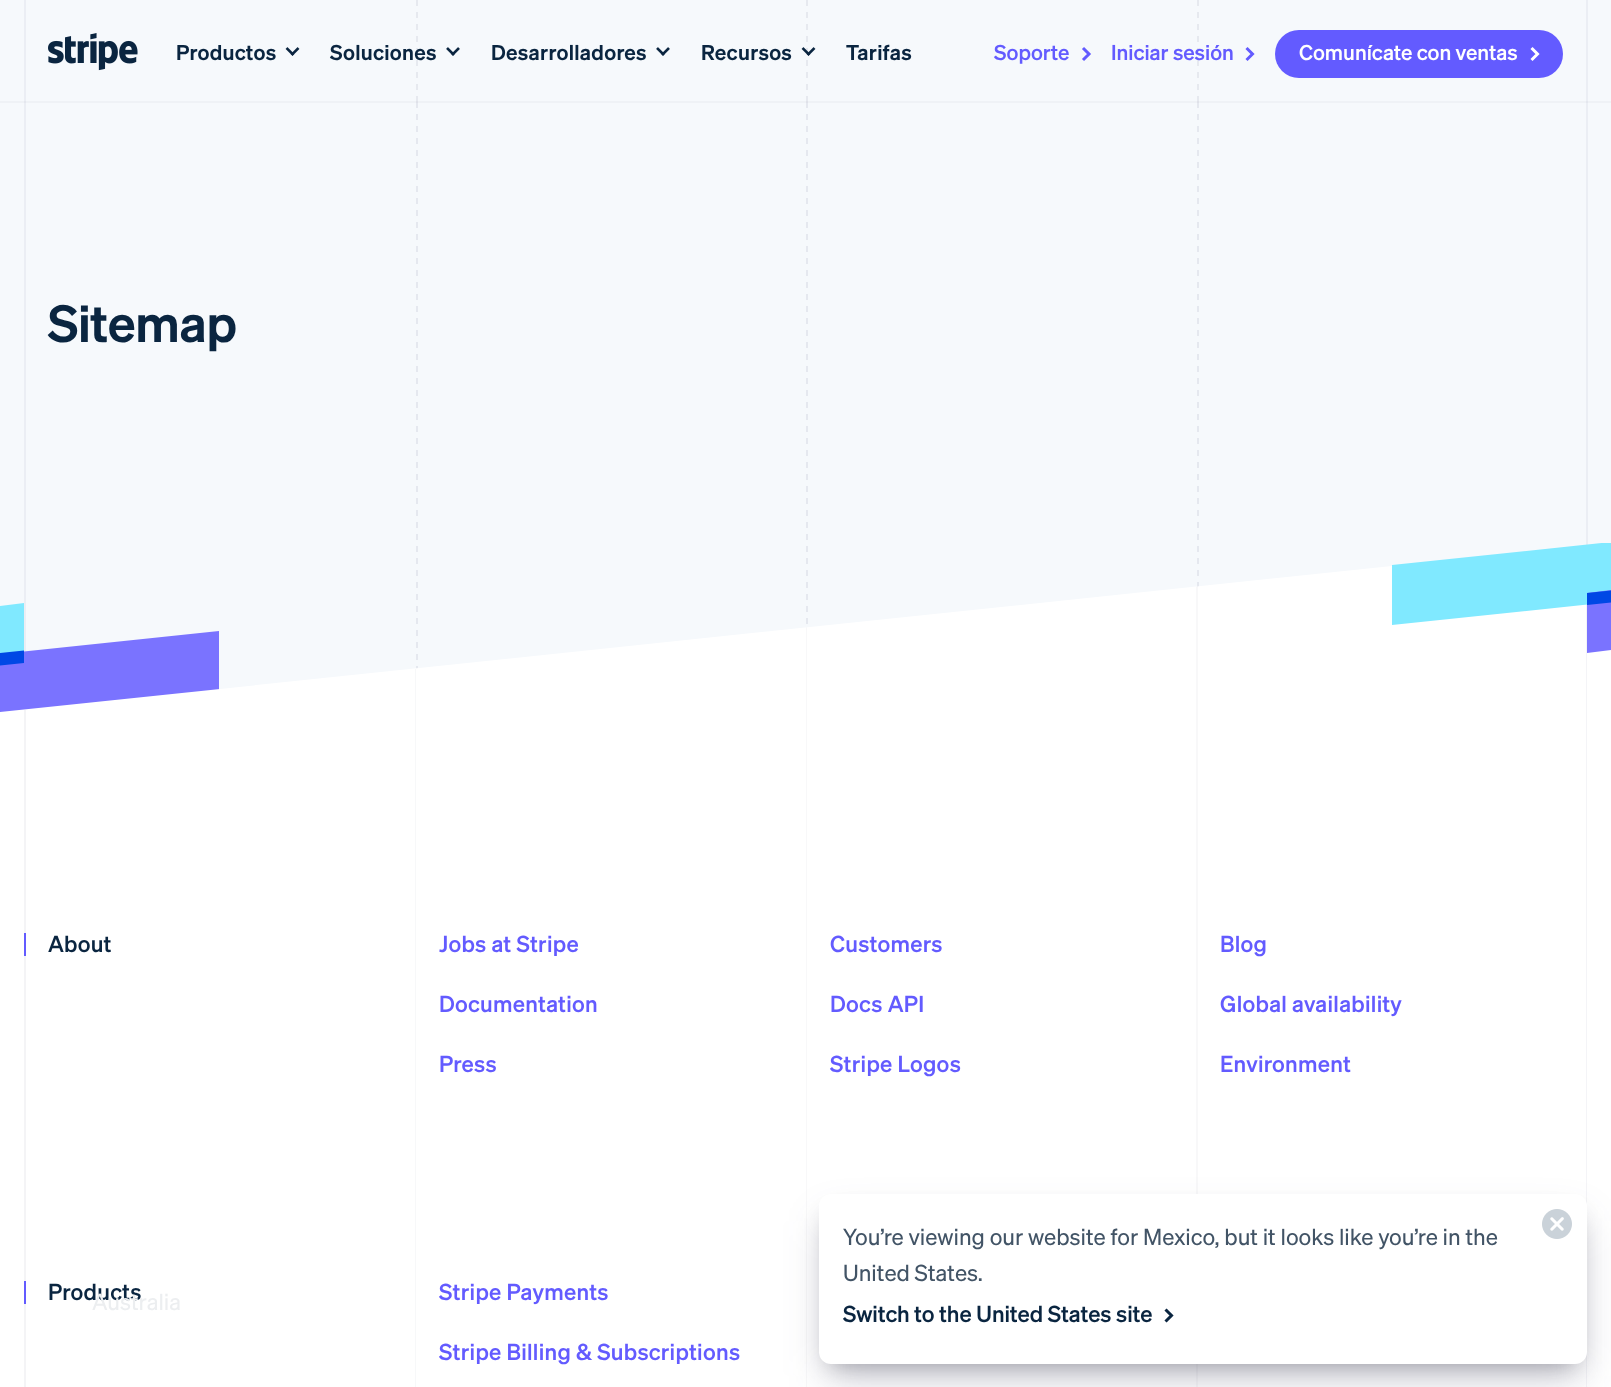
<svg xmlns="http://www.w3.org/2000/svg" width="1611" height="1387">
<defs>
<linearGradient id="g1" gradientUnits="userSpaceOnUse" x1="416" y1="0" x2="416" y2="12"><stop offset="0" stop-color="#e6e9ef"/><stop offset="0.5" stop-color="#e6e9ef"/><stop offset="0.5" stop-color="#f6f9fc"/><stop offset="1" stop-color="#f6f9fc"/></linearGradient>
<linearGradient id="g2" gradientUnits="userSpaceOnUse" x1="416" y1="12" x2="416" y2="24"><stop offset="0" stop-color="#e6e9ef"/><stop offset="0.5" stop-color="#e6e9ef"/><stop offset="0.5" stop-color="#f6f9fc"/><stop offset="1" stop-color="#f6f9fc"/></linearGradient>
<linearGradient id="g3" gradientUnits="userSpaceOnUse" x1="416" y1="24" x2="416" y2="36"><stop offset="0" stop-color="#e6e9ef"/><stop offset="0.5" stop-color="#e6e9ef"/><stop offset="0.5" stop-color="#f6f9fc"/><stop offset="1" stop-color="#f6f9fc"/></linearGradient>
<linearGradient id="g4" gradientUnits="userSpaceOnUse" x1="416" y1="36" x2="416" y2="48"><stop offset="0" stop-color="#e6e9ef"/><stop offset="0.5" stop-color="#e6e9ef"/><stop offset="0.5" stop-color="#f6f9fc"/><stop offset="1" stop-color="#f6f9fc"/></linearGradient>
<linearGradient id="g5" gradientUnits="userSpaceOnUse" x1="416" y1="48" x2="416" y2="60"><stop offset="0" stop-color="#e6e9ef"/><stop offset="0.5" stop-color="#e6e9ef"/><stop offset="0.5" stop-color="#f6f9fc"/><stop offset="1" stop-color="#f6f9fc"/></linearGradient>
<linearGradient id="g6" gradientUnits="userSpaceOnUse" x1="416" y1="60" x2="416" y2="72"><stop offset="0" stop-color="#e6e9ef"/><stop offset="0.5" stop-color="#e6e9ef"/><stop offset="0.5" stop-color="#f6f9fc"/><stop offset="1" stop-color="#f6f9fc"/></linearGradient>
<linearGradient id="g7" gradientUnits="userSpaceOnUse" x1="416" y1="72" x2="416" y2="84"><stop offset="0" stop-color="#e6e9ef"/><stop offset="0.5" stop-color="#e6e9ef"/><stop offset="0.5" stop-color="#f6f9fc"/><stop offset="1" stop-color="#f6f9fc"/></linearGradient>
<linearGradient id="g8" gradientUnits="userSpaceOnUse" x1="416" y1="84" x2="416" y2="96"><stop offset="0" stop-color="#e6e9ef"/><stop offset="0.5" stop-color="#e6e9ef"/><stop offset="0.5" stop-color="#f6f9fc"/><stop offset="1" stop-color="#f6f9fc"/></linearGradient>
<linearGradient id="g9" gradientUnits="userSpaceOnUse" x1="416" y1="96" x2="416" y2="108"><stop offset="0" stop-color="#e6e9ef"/><stop offset="0.5" stop-color="#e6e9ef"/><stop offset="0.5" stop-color="#f6f9fc"/><stop offset="1" stop-color="#f6f9fc"/></linearGradient>
<linearGradient id="g10" gradientUnits="userSpaceOnUse" x1="806" y1="0" x2="806" y2="12"><stop offset="0" stop-color="#e6e9ef"/><stop offset="0.5" stop-color="#e6e9ef"/><stop offset="0.5" stop-color="#f6f9fc"/><stop offset="1" stop-color="#f6f9fc"/></linearGradient>
<linearGradient id="g11" gradientUnits="userSpaceOnUse" x1="806" y1="12" x2="806" y2="24"><stop offset="0" stop-color="#e6e9ef"/><stop offset="0.5" stop-color="#e6e9ef"/><stop offset="0.5" stop-color="#f6f9fc"/><stop offset="1" stop-color="#f6f9fc"/></linearGradient>
<linearGradient id="g12" gradientUnits="userSpaceOnUse" x1="806" y1="24" x2="806" y2="36"><stop offset="0" stop-color="#e6e9ef"/><stop offset="0.5" stop-color="#e6e9ef"/><stop offset="0.5" stop-color="#f6f9fc"/><stop offset="1" stop-color="#f6f9fc"/></linearGradient>
<linearGradient id="g13" gradientUnits="userSpaceOnUse" x1="806" y1="36" x2="806" y2="48"><stop offset="0" stop-color="#e6e9ef"/><stop offset="0.5" stop-color="#e6e9ef"/><stop offset="0.5" stop-color="#f6f9fc"/><stop offset="1" stop-color="#f6f9fc"/></linearGradient>
<linearGradient id="g14" gradientUnits="userSpaceOnUse" x1="806" y1="48" x2="806" y2="60"><stop offset="0" stop-color="#e6e9ef"/><stop offset="0.5" stop-color="#e6e9ef"/><stop offset="0.5" stop-color="#f6f9fc"/><stop offset="1" stop-color="#f6f9fc"/></linearGradient>
<linearGradient id="g15" gradientUnits="userSpaceOnUse" x1="806" y1="60" x2="806" y2="72"><stop offset="0" stop-color="#e6e9ef"/><stop offset="0.5" stop-color="#e6e9ef"/><stop offset="0.5" stop-color="#f6f9fc"/><stop offset="1" stop-color="#f6f9fc"/></linearGradient>
<linearGradient id="g16" gradientUnits="userSpaceOnUse" x1="806" y1="72" x2="806" y2="84"><stop offset="0" stop-color="#e6e9ef"/><stop offset="0.5" stop-color="#e6e9ef"/><stop offset="0.5" stop-color="#f6f9fc"/><stop offset="1" stop-color="#f6f9fc"/></linearGradient>
<linearGradient id="g17" gradientUnits="userSpaceOnUse" x1="806" y1="84" x2="806" y2="96"><stop offset="0" stop-color="#e6e9ef"/><stop offset="0.5" stop-color="#e6e9ef"/><stop offset="0.5" stop-color="#f6f9fc"/><stop offset="1" stop-color="#f6f9fc"/></linearGradient>
<linearGradient id="g18" gradientUnits="userSpaceOnUse" x1="806" y1="96" x2="806" y2="108"><stop offset="0" stop-color="#e6e9ef"/><stop offset="0.5" stop-color="#e6e9ef"/><stop offset="0.5" stop-color="#f6f9fc"/><stop offset="1" stop-color="#f6f9fc"/></linearGradient>
<linearGradient id="g19" gradientUnits="userSpaceOnUse" x1="1198" y1="0" x2="1198" y2="12"><stop offset="0" stop-color="#e6e9ef"/><stop offset="0.5" stop-color="#e6e9ef"/><stop offset="0.5" stop-color="#f6f9fc"/><stop offset="1" stop-color="#f6f9fc"/></linearGradient>
<linearGradient id="g20" gradientUnits="userSpaceOnUse" x1="1198" y1="12" x2="1198" y2="24"><stop offset="0" stop-color="#e6e9ef"/><stop offset="0.5" stop-color="#e6e9ef"/><stop offset="0.5" stop-color="#f6f9fc"/><stop offset="1" stop-color="#f6f9fc"/></linearGradient>
<linearGradient id="g21" gradientUnits="userSpaceOnUse" x1="1198" y1="24" x2="1198" y2="36"><stop offset="0" stop-color="#e6e9ef"/><stop offset="0.5" stop-color="#e6e9ef"/><stop offset="0.5" stop-color="#f6f9fc"/><stop offset="1" stop-color="#f6f9fc"/></linearGradient>
<linearGradient id="g22" gradientUnits="userSpaceOnUse" x1="1198" y1="36" x2="1198" y2="48"><stop offset="0" stop-color="#e6e9ef"/><stop offset="0.5" stop-color="#e6e9ef"/><stop offset="0.5" stop-color="#f6f9fc"/><stop offset="1" stop-color="#f6f9fc"/></linearGradient>
<linearGradient id="g23" gradientUnits="userSpaceOnUse" x1="1198" y1="48" x2="1198" y2="60"><stop offset="0" stop-color="#e6e9ef"/><stop offset="0.5" stop-color="#e6e9ef"/><stop offset="0.5" stop-color="#f6f9fc"/><stop offset="1" stop-color="#f6f9fc"/></linearGradient>
<linearGradient id="g24" gradientUnits="userSpaceOnUse" x1="1198" y1="60" x2="1198" y2="72"><stop offset="0" stop-color="#e6e9ef"/><stop offset="0.5" stop-color="#e6e9ef"/><stop offset="0.5" stop-color="#f6f9fc"/><stop offset="1" stop-color="#f6f9fc"/></linearGradient>
<linearGradient id="g25" gradientUnits="userSpaceOnUse" x1="1198" y1="72" x2="1198" y2="84"><stop offset="0" stop-color="#e6e9ef"/><stop offset="0.5" stop-color="#e6e9ef"/><stop offset="0.5" stop-color="#f6f9fc"/><stop offset="1" stop-color="#f6f9fc"/></linearGradient>
<linearGradient id="g26" gradientUnits="userSpaceOnUse" x1="1198" y1="84" x2="1198" y2="96"><stop offset="0" stop-color="#e6e9ef"/><stop offset="0.5" stop-color="#e6e9ef"/><stop offset="0.5" stop-color="#f6f9fc"/><stop offset="1" stop-color="#f6f9fc"/></linearGradient>
<linearGradient id="g27" gradientUnits="userSpaceOnUse" x1="1198" y1="96" x2="1198" y2="108"><stop offset="0" stop-color="#e6e9ef"/><stop offset="0.5" stop-color="#e6e9ef"/><stop offset="0.5" stop-color="#f6f9fc"/><stop offset="1" stop-color="#f6f9fc"/></linearGradient>
<clipPath id="clip1"><rect y="543" width="1611" height="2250"/></clipPath>
</defs>
<rect width="100%" height="100%" fill="#f6f9fc"/>
<rect x="416" width="2" height="12" fill="url(#g1)"/>
<rect x="416" y="12" width="2" height="12" fill="url(#g2)"/>
<rect x="416" y="24" width="2" height="12" fill="url(#g3)"/>
<rect x="416" y="36" width="2" height="12" fill="url(#g4)"/>
<rect x="416" y="48" width="2" height="12" fill="url(#g5)"/>
<rect x="416" y="60" width="2" height="12" fill="url(#g6)"/>
<rect x="416" y="72" width="2" height="12" fill="url(#g7)"/>
<rect x="416" y="84" width="2" height="12" fill="url(#g8)"/>
<rect x="416" y="96" width="2" height="6" fill="url(#g9)"/>
<rect x="806" width="2" height="12" fill="url(#g10)"/>
<rect x="806" y="12" width="2" height="12" fill="url(#g11)"/>
<rect x="806" y="24" width="2" height="12" fill="url(#g12)"/>
<rect x="806" y="36" width="2" height="12" fill="url(#g13)"/>
<rect x="806" y="48" width="2" height="12" fill="url(#g14)"/>
<rect x="806" y="60" width="2" height="12" fill="url(#g15)"/>
<rect x="806" y="72" width="2" height="12" fill="url(#g16)"/>
<rect x="806" y="84" width="2" height="12" fill="url(#g17)"/>
<rect x="806" y="96" width="2" height="6" fill="url(#g18)"/>
<rect x="1197" width="2" height="12" fill="url(#g19)"/>
<rect x="1197" y="12" width="2" height="12" fill="url(#g20)"/>
<rect x="1197" y="24" width="2" height="12" fill="url(#g21)"/>
<rect x="1197" y="36" width="2" height="12" fill="url(#g22)"/>
<rect x="1197" y="48" width="2" height="12" fill="url(#g23)"/>
<rect x="1197" y="60" width="2" height="12" fill="url(#g24)"/>
<rect x="1197" y="72" width="2" height="12" fill="url(#g25)"/>
<rect x="1197" y="84" width="2" height="12" fill="url(#g26)"/>
<rect x="1197" y="96" width="2" height="6" fill="url(#g27)"/>
<image x="48" y="33" width="90" height="38" href="media/1.png"/>
<text x="176" y="60" style="font-family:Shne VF;font-size:21px;font-weight:500;letter-spacing:0.3px;fill:#0a2540">Productos</text>
<image x="285" y="47" width="10" height="9" href="media/2.png"/>
<image x="290" y="47" width="10" height="9" href="media/3.png"/>
<text x="330" y="60" style="font-family:Shne VF;font-size:21px;font-weight:500;letter-spacing:0.3px;fill:#0a2540">Soluciones</text>
<image x="446" y="47" width="9" height="9" href="media/4.png"/>
<image x="451" y="47" width="9" height="9" href="media/5.png"/>
<text x="491" y="60" style="font-family:Shne VF;font-size:21px;font-weight:500;letter-spacing:0.3px;fill:#0a2540">Desarrolladores</text>
<image x="656" y="47" width="9" height="9" href="media/4.png"/>
<image x="661" y="47" width="9" height="9" href="media/5.png"/>
<text x="701" y="60" style="font-family:Shne VF;font-size:21px;font-weight:500;letter-spacing:0.3px;fill:#0a2540">Recursos</text>
<image x="801" y="47" width="10" height="9" href="media/6.png"/>
<image x="806" y="47" width="10" height="9" href="media/7.png"/>
<text x="846" y="60" style="font-family:Shne VF;font-size:21px;font-weight:500;letter-spacing:0.3px;fill:#0a2540">Tarifas</text>
<text x="994" y="60" style="font-family:Shne VF;font-size:21px;fill:#635bff">Soporte</text>
<path d="M1083 48l6 6l-6 6" fill="none" stroke="#635bff" stroke-width="3"/>
<text x="1111" y="60" style="font-family:Shne VF;font-size:21px;fill:#635bff">Iniciar sesión</text>
<path d="M1246.5 48l6 6l-6 6" fill="none" stroke="#635bff" stroke-width="3"/>
<rect x="1275" y="30" width="288" height="48" rx="24" fill="#635bff"/>
<text x="1299" y="60" style="font-family:Shne VF;font-size:21px;fill:#fff">Comunícate con ventas</text>
<path d="M1531.5 48l6 6l-6 6" fill="none" stroke="#fff" stroke-width="3"/>
<rect x="24" width="2" height="652" fill="#ebeef4"/>
<image x="416" y="102" width="2" height="567" href="media/8.png"/>
<image x="806" y="102" width="2" height="522" href="media/9.png"/>
<image x="1197" y="102" width="2" height="485" href="media/10.png"/>
<rect x="1586" width="2" height="545" fill="#ebeef4"/>
<rect y="101" width="1611" height="2" fill="#4247700a"/>
<text x="48" y="342" style="font-family:Shne VF;font-size:51px;font-weight:500;letter-spacing:-0.25px;fill:#0a2540">Sitemap</text>
<path d="M0 606v60l24-3v-60z" fill="#80e9ff"/>
<path d="M0 654v60l219-23v-60z" fill="#7a73ff"/>
<path d="M0 653l24-2.5v12.5l-24 2.5z" fill="#0048e5"/>
<path d="M0 712l1611-169v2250l-1611 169z" fill="#fff"/>
<rect x="24" y="710" width="2" height="677" fill="#f4f4f6"/>
<rect x="415" y="669" width="1" height="718" fill="#f7f8f9"/>
<path d="M806 628l1-1v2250h-1z" fill="#4247700a"/>
<path d="M1196 587l2-1v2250h-2z" fill="#4247700a"/>
<path d="M1586 546l1-1v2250h-1z" fill="#4247700f"/>
<g clip-path="url(#clip1)">
<path d="M1611 602v-60l-219 23v60z" fill="#80e9ff"/>
</g>
<path d="M1587 593l24-3v60l-24 3z" fill="#7a73ff"/>
<path d="M1587 593v12l24-2.5v-12z" fill="#0048e5"/>
<rect x="24" y="933" width="2" height="23" fill="#635bff"/>
<text x="48" y="952" style="font-family:Shne VF;font-size:22.5px;letter-spacing:0.3px;fill:#0a2540">About</text>
<text x="439" y="952" style="font-family:Shne VF;font-size:22.5px;letter-spacing:0.3px;fill:#635bff">Jobs at Stripe</text>
<text x="830" y="952" style="font-family:Shne VF;font-size:22.5px;letter-spacing:0.3px;fill:#635bff">Customers</text>
<text x="1220" y="952" style="font-family:Shne VF;font-size:22.5px;letter-spacing:0.3px;fill:#635bff">Blog</text>
<text x="439" y="1012" style="font-family:Shne VF;font-size:22.5px;letter-spacing:0.3px;fill:#635bff">Documentation</text>
<text x="830" y="1012" style="font-family:Shne VF;font-size:22.5px;letter-spacing:0.3px;fill:#635bff">Docs API</text>
<text x="1220" y="1012" style="font-family:Shne VF;font-size:22.5px;letter-spacing:0.3px;fill:#635bff">Global availability</text>
<text x="439" y="1072" style="font-family:Shne VF;font-size:22.5px;letter-spacing:0.3px;fill:#635bff">Press</text>
<text x="830" y="1072" style="font-family:Shne VF;font-size:22.5px;letter-spacing:0.3px;fill:#635bff">Stripe Logos</text>
<text x="1220" y="1072" style="font-family:Shne VF;font-size:22.5px;letter-spacing:0.3px;fill:#635bff">Environment</text>
<rect x="24" y="1281" width="2" height="23" fill="#635bff"/>
<text x="48" y="1300" style="font-family:Shne VF;font-size:22.5px;letter-spacing:0.3px;fill:#0a2540">Products</text>
<text x="439" y="1300" style="font-family:Shne VF;font-size:22.5px;letter-spacing:0.3px;fill:#635bff">Stripe Payments</text>
<text x="439" y="1360" style="font-family:Shne VF;font-size:22.5px;letter-spacing:0.3px;fill:#635bff">Stripe Billing &amp; Subscriptions</text>
<text x="92" y="1310" style="font-family:Shne VF;font-size:22.5px;font-weight:300;fill:#eceef0">Australia</text>
<rect x="831" y="1218" width="744" height="146" fill="#0000004d" filter="blur(12px)"/>
<rect x="827" y="1221" width="753" height="155" rx="5" fill="#32325d40" filter="blur(20px)"/>
<rect x="819" y="1194" width="768" height="170" rx="12" fill="#fff"/>
<image x="1542" y="1209" width="30" height="30" href="media/11.png"/>
<text x="843" y="1245" style="font-family:Shne VF;font-size:22.5px;font-weight:300;fill:#425466">You’re viewing our website for Mexico, but it looks like you’re in the</text>
<text x="843" y="1281" style="font-family:Shne VF;font-size:22.5px;font-weight:300;fill:#425466">United States.</text>
<text x="843" y="1322" style="font-family:Shne VF;font-size:22.5px;fill:#0a2540">Switch to the United States site</text>
<path d="M1165.5 1309.5l6 6l-6 6" fill="none" stroke="#0a2540" stroke-width="3"/>
</svg>
